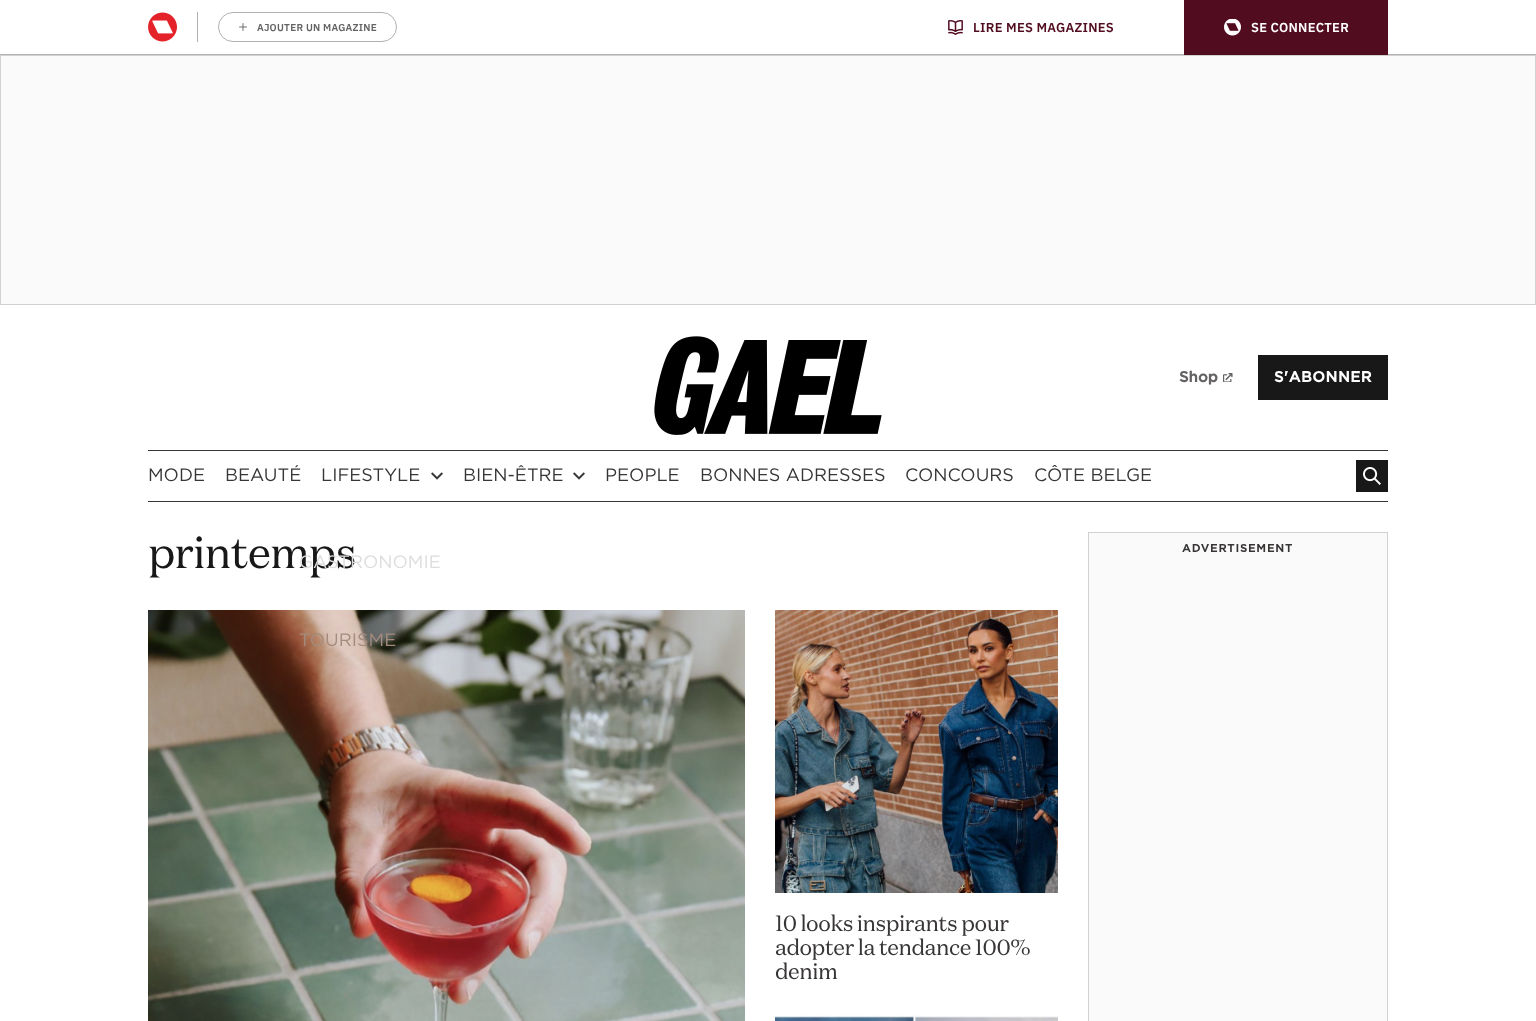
<svg xmlns="http://www.w3.org/2000/svg" width="1536" height="1021">
<rect width="100%" height="100%" fill="#fff"/>
<rect y="54" width="1536" height="1" fill="#b2b2b2"/>
<rect x="197" y="12" width="1" height="30" fill="#b2b1b1"/>
<image x="148" y="12" width="29" height="30" href="media/1.png"/>
<rect x="218.5" y="12.5" width="178" height="29" rx="14.5" fill="none" stroke="#b2b1b1"/>
<image x="239" y="23" width="8" height="8" href="media/2.png"/>
<text x="257" y="31" style="font-family:IBM Plex Sans;font-size:10px;font-weight:600;letter-spacing:0.25px;fill:#646262">AJOUTER UN MAGAZINE</text>
<image x="948" y="20" width="15" height="15" href="media/3.png"/>
<text x="973" y="32" style="font-family:IBM Plex Sans;font-size:13px;font-weight:600;letter-spacing:0.25px;fill:#520c20">LIRE MES MAGAZINES</text>
<rect x="1184" width="204" height="55" fill="#520c20"/>
<image x="1224" y="19" width="17" height="17" href="media/4.png"/>
<text x="1251" y="32" style="font-family:IBM Plex Sans;font-size:13px;font-weight:600;letter-spacing:0.25px;fill:#fff">SE CONNECTER</text>
<rect x="0.5" y="55.5" width="1535" height="249" fill="#fafafa" stroke="#d1d1d1"/>
<image x="654" y="336" width="228" height="99" href="media/5.png"/>
<text x="1179" y="382" style="font-family:Gotham;font-size:15px;font-weight:bold;fill:#646262">Shop</text>
<image x="1223" y="373" width="10" height="9" href="media/6.png"/>
<rect x="1258" y="355" width="130" height="45" fill="#191818"/>
<text x="1274" y="382" style="font-family:Gotham;font-size:15px;font-weight:bold;letter-spacing:0.5px;fill:#fff">S'ABONNER</text>
<rect x="148" y="450" width="1240" height="1" fill="#383535"/>
<rect x="148" y="501" width="1240" height="1" fill="#383535"/>
<text x="148" y="481" style="font-family:Gotham;font-size:18px;fill:#383535">MODE</text>
<text x="225" y="481" style="font-family:Gotham;font-size:18px;fill:#383535">BEAUTÉ</text>
<text x="321" y="481" style="font-family:Gotham;font-size:18px;fill:#383535">LIFESTYLE</text>
<image x="431" y="472" width="12" height="8" href="media/7.png"/>
<text x="148" y="568" style="font-family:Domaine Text;font-size:44px;letter-spacing:-1px;fill:#191818">printemps</text>
<text x="299" y="568" style="font-family:Gotham;font-size:18px;fill:#ddd">GASTRONOMIE</text>
<image x="148" y="610" width="597" height="411" href="media/9.png"/>
<text x="299" y="646" style="font-family:Gotham;font-size:18px;fill:#a38c7e">TOURISME</text>
<text x="463" y="481" style="font-family:Gotham;font-size:18px;fill:#383535">BIEN-ÊTRE</text>
<image x="573" y="472" width="12" height="8" href="media/7.png"/>
<text x="605" y="481" style="font-family:Gotham;font-size:18px;fill:#383535">PEOPLE</text>
<text x="700" y="481" style="font-family:Gotham;font-size:18px;fill:#383535">BONNES ADRESSES</text>
<text x="905" y="481" style="font-family:Gotham;font-size:18px;fill:#383535">CONCOURS</text>
<text x="1034" y="481" style="font-family:Gotham;font-size:18px;fill:#383535">CÔTE BELGE</text>
<rect x="1356" y="460" width="32" height="32" fill="#191818"/>
<image x="1363" y="467" width="18" height="18" href="media/8.png"/>
<image x="775" y="610" width="283" height="283" href="media/10.png"/>
<text x="775" y="931" style="font-family:Domaine Text;font-size:22px;letter-spacing:-0.5px;fill:#383535">10 looks inspirants pour</text>
<text x="775" y="955" style="font-family:Domaine Text;font-size:22px;letter-spacing:-0.5px;fill:#383535">adopter la tendance 100%</text>
<text x="775" y="979" style="font-family:Domaine Text;font-size:22px;letter-spacing:-0.5px;fill:#383535">denim</text>
<image x="775" y="1015" width="283" height="6" href="media/11.png"/>
<rect x="1088.5" y="532.5" width="299" height="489" fill="#fafafa" stroke="#d1d1d1"/>
<text x="1182" y="552" style="font-family:Gotham;font-size:11px;font-weight:bold;letter-spacing:1px;fill:#383535">ADVERTISEMENT</text>
</svg>
